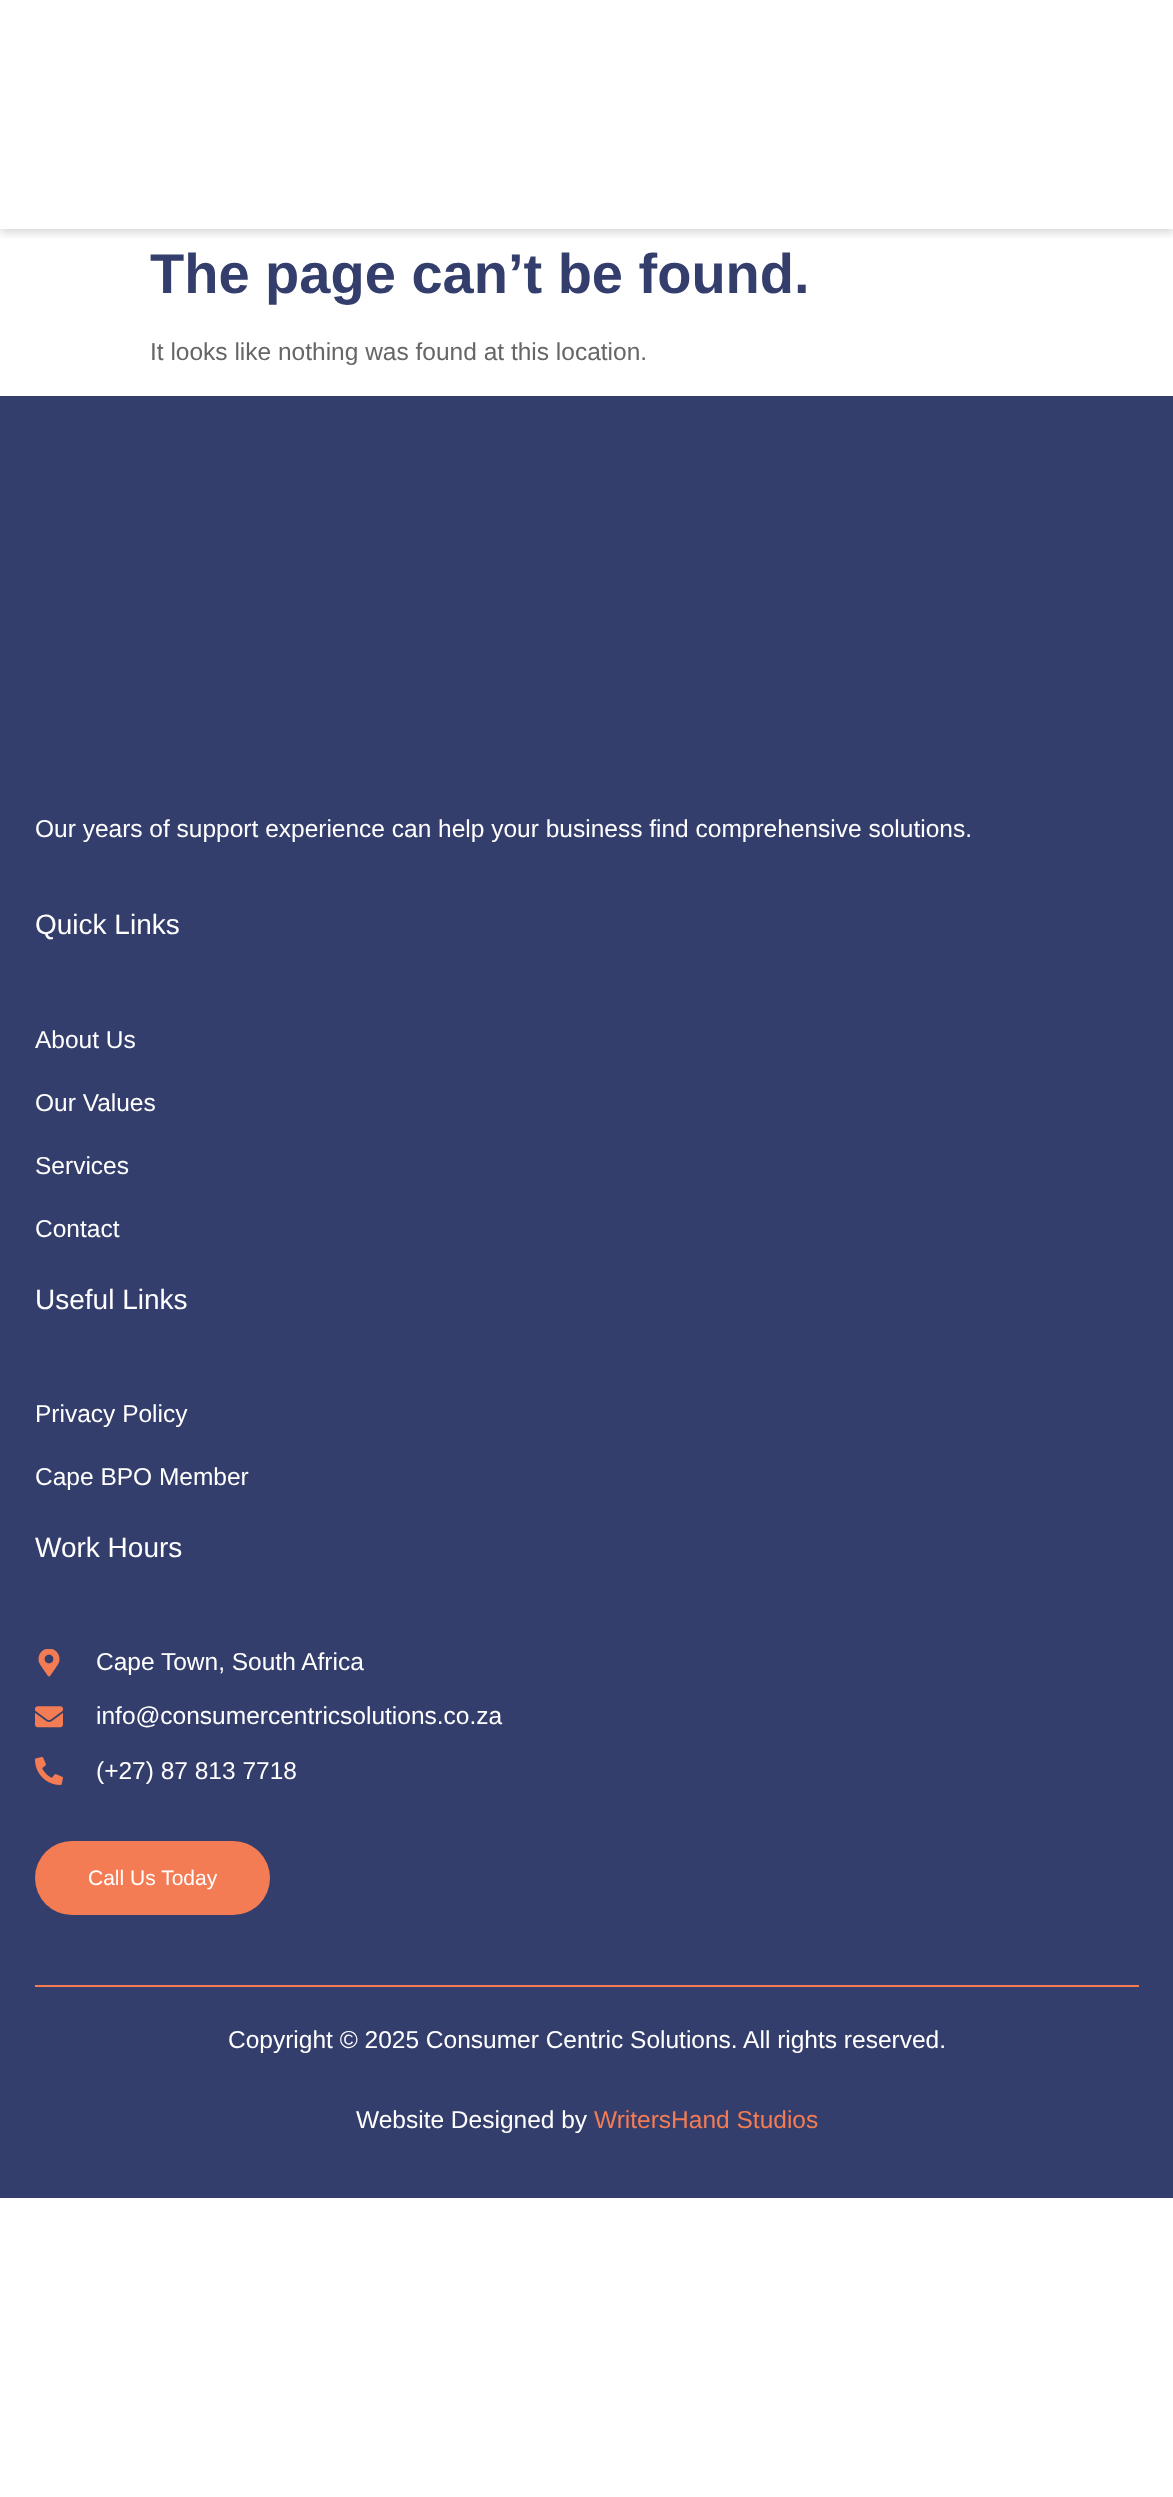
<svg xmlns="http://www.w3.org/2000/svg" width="1173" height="2497">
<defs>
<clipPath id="clip1"><rect x="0" y="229" width="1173" height="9"/></clipPath>
</defs>
<rect width="100%" height="100%" fill="#fff"/>
<g clip-path="url(#clip1)">
<rect y="4" width="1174" height="229" fill="#00000026" filter="blur(4.5px)"/>
</g>
<text x="150" y="293" style="font-family:Liberation Sans;font-size:56px;font-weight:bold;fill:#343e6c">The page can’t be found.</text>
<text x="150" y="360" style="font-family:Liberation Sans;font-size:24.5px;fill:#666">It looks like nothing was found at this location.</text>
<rect y="396" width="1173" height="1802" fill="#343e6c"/>
<text x="35" y="837" style="font-family:Liberation Sans;font-size:24.5px;fill:#fff">Our years of support experience can help your business find comprehensive solutions.</text>
<text x="35" y="934" style="font-family:Liberation Sans;font-size:28px;fill:#fff">Quick Links</text>
<text x="35" y="1048" style="font-family:Liberation Sans;font-size:24.5px;fill:#fff">About Us</text>
<text x="35" y="1111" style="font-family:Liberation Sans;font-size:24.5px;fill:#fff">Our Values</text>
<text x="35" y="1174" style="font-family:Liberation Sans;font-size:24.5px;fill:#fff">Services</text>
<text x="35" y="1237" style="font-family:Liberation Sans;font-size:24.5px;fill:#fff">Contact</text>
<text x="35" y="1309" style="font-family:Liberation Sans;font-size:28px;fill:#fff">Useful Links</text>
<text x="35" y="1422" style="font-family:Liberation Sans;font-size:24.5px;fill:#fff">Privacy Policy</text>
<text x="35" y="1485" style="font-family:Liberation Sans;font-size:24.5px;fill:#fff">Cape BPO Member</text>
<text x="35" y="1557" style="font-family:Liberation Sans;font-size:28px;fill:#fff">Work Hours</text>
<image x="38" y="1649" width="22" height="28" href="media/1.png"/>
<text x="96" y="1670" style="font-family:Liberation Sans;font-size:24.5px;fill:#fff">Cape Town, South Africa</text>
<image x="35" y="1706" width="28" height="22" href="media/2.png"/>
<text x="96" y="1724" style="font-family:Liberation Sans;font-size:24.5px;fill:#fff">info@consumercentricsolutions.co.za</text>
<image x="35" y="1757" width="28" height="28" href="media/3.png"/>
<text x="96" y="1779" style="font-family:Liberation Sans;font-size:24.5px;fill:#fff">(+27) 87 813 7718</text>
<rect x="35" y="1841" width="235" height="74" rx="37" fill="#f47c54"/>
<text x="88" y="1885" style="font-family:Liberation Sans;font-size:21px;fill:#fff">Call Us Today</text>
<rect x="35" y="1985" width="1104" height="2" fill="#f47c54"/>
<text x="228" y="2048" style="font-family:Liberation Sans;font-size:24.5px;fill:#fff">Copyright © 2025 Consumer Centric Solutions. All rights reserved.</text>
<text x="356" y="2128" style="font-family:Liberation Sans;font-size:24.5px;fill:#fff">Website Designed by</text>
<text x="594" y="2128" style="font-family:Liberation Sans;font-size:24.5px;fill:#f47c54">WritersHand Studios</text>
</svg>
